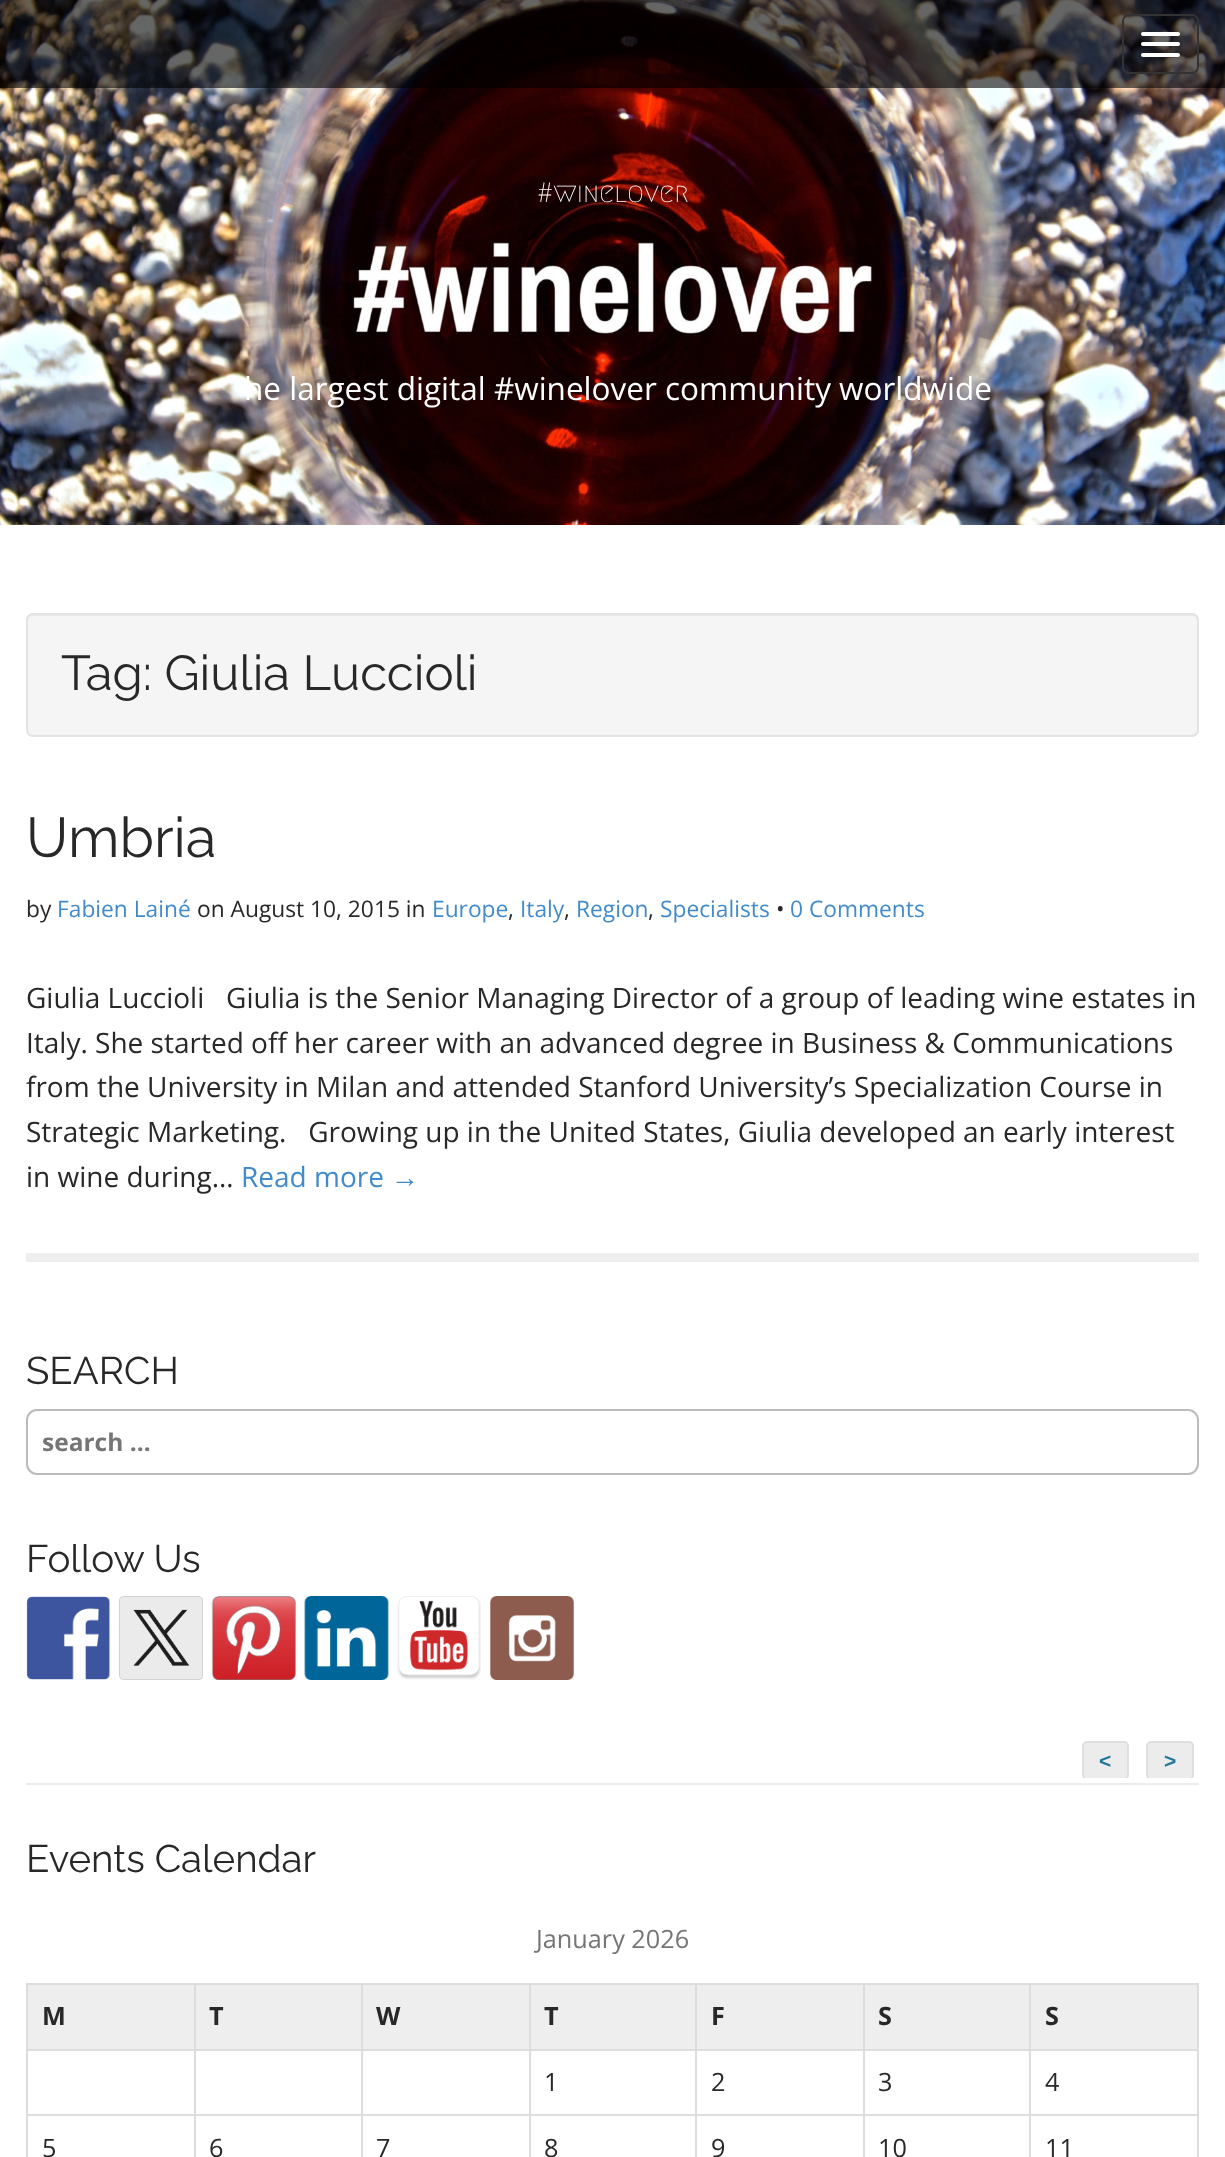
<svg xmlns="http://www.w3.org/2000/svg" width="1225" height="2157">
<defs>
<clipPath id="clip1"><rect x="26" y="1741" width="1173" height="37"/></clipPath>
</defs>
<rect width="100%" height="100%" fill="#fff"/>
<image x="0" y="0" width="1225" height="525" href="media/1.png"/>
<rect width="1225" height="88" fill="#00000099"/>
<rect x="1123" y="15" width="75" height="58" rx="6" fill="none" stroke="#333" stroke-width="2"/>
<rect x="1141" y="32" width="39" height="4" rx="2" fill="#fff"/>
<rect x="1141" y="42" width="39" height="4" rx="2" fill="#fff"/>
<rect x="1141" y="53" width="39" height="4" rx="2" fill="#fff"/>
<text x="537" y="202" style="font-family:Megrim;font-size:28px;font-weight:500;fill:#fff">#winelover</text>
<text x="244" y="400" style="font-family:Open Sans;font-size:31.5px;fill:#fff">he largest digital #winelover community worldwide</text>
<rect x="26" y="613" width="1173" height="124" rx="7" fill="#f5f5f5"/>
<path d="M33 616h1159c3 0 5 2 5 5v-2c0-3-2-5-5-5h-1159c-3 0-5 2-5 5v2c0-3 2-5 5-5z" fill="#e9e9e9"/>
<rect x="27" y="614" width="1171" height="122" rx="6" fill="none" stroke="#e3e3e3" stroke-width="2"/>
<text x="61" y="690" style="font-family:Raleway;font-size:49px;font-weight:100;fill:#282828">Tag: Giulia Luccioli</text>
<rect x="26" y="1253" width="1173" height="9" fill="#eee"/>
<text x="26" y="857" style="font-family:Raleway;font-size:56px;font-weight:100;fill:#282828">Umbria</text>
<text x="26" y="917" style="font-family:Open Sans;font-size:22.75px;fill:#282828">by</text>
<text x="57" y="917" style="font-family:Open Sans;font-size:22.75px;fill:#428bca">Fabien Lainé</text>
<text x="197" y="917" style="font-family:Open Sans;font-size:22.75px;fill:#282828">on August 10, 2015 in</text>
<text x="432" y="917" style="font-family:Open Sans;font-size:22.75px;fill:#428bca">Europe</text>
<text x="520" y="917" style="font-family:Open Sans;font-size:22.75px;fill:#428bca">Italy</text>
<text x="576" y="917" style="font-family:Open Sans;font-size:22.75px;fill:#428bca">Region</text>
<text x="660" y="917" style="font-family:Open Sans;font-size:22.75px;fill:#428bca">Specialists</text>
<text x="776" y="917" style="font-family:Open Sans;font-size:22.75px;fill:#282828">•</text>
<text x="790" y="917" style="font-family:Open Sans;font-size:22.75px;fill:#428bca">0 Comments</text>
<text x="508" y="917" style="font-family:Open Sans;font-size:22.75px;fill:#282828">,</text>
<text x="564" y="917" style="font-family:Open Sans;font-size:22.75px;fill:#282828">,</text>
<text x="648" y="917" style="font-family:Open Sans;font-size:22.75px;fill:#282828">,</text>
<text x="26" y="1008" style="font-family:Open Sans;font-size:28px;fill:#282828" xml:space="preserve">Giulia Luccioli   Giulia is the Senior Managing Director of a group of leading wine estates in</text>
<text x="26" y="1053" style="font-family:Open Sans;font-size:28px;fill:#282828">Italy. She started off her career with an advanced degree in Business &amp; Communications</text>
<text x="26" y="1097" style="font-family:Open Sans;font-size:28px;fill:#282828">from the University in Milan and attended Stanford University’s Specialization Course in</text>
<text x="26" y="1142" style="font-family:Open Sans;font-size:28px;fill:#282828" xml:space="preserve">Strategic Marketing.   Growing up in the United States, Giulia developed an early interest</text>
<text x="26" y="1187" style="font-family:Open Sans;font-size:28px;fill:#282828">in wine during…</text>
<text x="241" y="1187" style="font-family:Open Sans;font-size:28px;fill:#428bca">Read more</text>
<text x="391" y="1187" style="font-family:Liberation Sans;font-size:28px;fill:#428bca">→</text>
<text x="26" y="1384" style="font-family:Raleway;font-size:38.5px;font-weight:100;fill:#282828">SEARCH</text>
<rect x="27" y="1410" width="1171" height="64" rx="10" fill="none" stroke="#bbb" stroke-width="2"/>
<text x="42" y="1451" style="font-family:Open Sans;font-size:24.5px;font-weight:bold;fill:#757575">search …</text>
<text x="26" y="1572" style="font-family:Raleway;font-size:38.5px;font-weight:100;fill:#282828">Follow Us</text>
<image x="26" y="1596" width="85" height="84" href="media/2.png"/>
<image x="119" y="1596" width="84" height="84" href="media/3.png"/>
<image x="211" y="1596" width="85" height="84" href="media/4.png"/>
<image x="304" y="1596" width="85" height="84" href="media/5.png"/>
<image x="397" y="1596" width="84" height="84" href="media/6.png"/>
<image x="490" y="1596" width="84" height="84" href="media/7.png"/>
<g clip-path="url(#clip1)">
<rect x="1083" y="1742" width="45" height="37" rx="4" fill="#ececec" stroke="#dfdfdf" stroke-width="2"/>
</g>
<text x="1099" y="1768" style="font-family:Liberation Sans;font-size:21px;font-weight:bold;fill:#21759b">&lt;</text>
<g clip-path="url(#clip1)">
<rect x="1147" y="1742" width="46" height="37" rx="4" fill="#ececec" stroke="#dfdfdf" stroke-width="2"/>
</g>
<text x="1164" y="1768" style="font-family:Liberation Sans;font-size:21px;font-weight:bold;fill:#21759b">&gt;</text>
<rect x="26" y="1783" width="1173" height="2" fill="#ececec"/>
<text x="26" y="1872" style="font-family:Raleway;font-size:38.5px;font-weight:100;fill:#282828">Events Calendar</text>
<text x="536" y="1948" style="font-family:Open Sans;font-size:25.25px;fill:#757575">January 2026</text>
<rect x="28" y="1985" width="166" height="64" fill="#eee"/>
<rect x="1029" y="1983" width="170" height="2" fill="#ddd"/>
<rect x="1029" y="2049" width="170" height="2" fill="#ddd"/>
<rect x="1029" y="2114" width="170" height="2" fill="#ddd"/>
<rect x="1029" y="2114" width="2" height="43" fill="#ddd"/>
<rect x="863" y="2114" width="168" height="2" fill="#ddd"/>
<rect x="1029" y="2049" width="2" height="67" fill="#ddd"/>
<rect x="863" y="2049" width="168" height="2" fill="#ddd"/>
<rect x="1029" y="1983" width="2" height="68" fill="#ddd"/>
<rect x="863" y="1983" width="168" height="2" fill="#ddd"/>
<rect x="863" y="2114" width="2" height="43" fill="#ddd"/>
<rect x="695" y="2114" width="170" height="2" fill="#ddd"/>
<rect x="863" y="2049" width="2" height="67" fill="#ddd"/>
<rect x="695" y="2049" width="170" height="2" fill="#ddd"/>
<rect x="863" y="1983" width="2" height="68" fill="#ddd"/>
<rect x="695" y="1983" width="170" height="2" fill="#ddd"/>
<rect x="695" y="2114" width="2" height="43" fill="#ddd"/>
<rect x="529" y="2114" width="168" height="2" fill="#ddd"/>
<rect x="695" y="2049" width="2" height="67" fill="#ddd"/>
<rect x="529" y="2049" width="168" height="2" fill="#ddd"/>
<rect x="695" y="1983" width="2" height="68" fill="#ddd"/>
<rect x="529" y="1983" width="168" height="2" fill="#ddd"/>
<rect x="529" y="2114" width="2" height="43" fill="#ddd"/>
<rect x="361" y="2114" width="169" height="2" fill="#ddd"/>
<rect x="529" y="2049" width="2" height="67" fill="#ddd"/>
<rect x="361" y="2049" width="169" height="2" fill="#ddd"/>
<rect x="529" y="1983" width="2" height="68" fill="#ddd"/>
<rect x="361" y="1983" width="169" height="2" fill="#ddd"/>
<rect x="361" y="2114" width="2" height="43" fill="#ddd"/>
<rect x="194" y="2114" width="168" height="2" fill="#ddd"/>
<rect x="361" y="2049" width="2" height="67" fill="#ddd"/>
<rect x="194" y="2049" width="168" height="2" fill="#ddd"/>
<rect x="361" y="1983" width="2" height="68" fill="#ddd"/>
<rect x="194" y="1983" width="168" height="2" fill="#ddd"/>
<rect x="194" y="2114" width="2" height="43" fill="#ddd"/>
<rect x="26" y="2114" width="170" height="2" fill="#ddd"/>
<rect x="194" y="2049" width="2" height="67" fill="#ddd"/>
<rect x="26" y="2049" width="170" height="2" fill="#ddd"/>
<rect x="194" y="1983" width="2" height="68" fill="#ddd"/>
<rect x="26" y="1983" width="170" height="2" fill="#ddd"/>
<rect x="26" y="2114" width="2" height="43" fill="#ddd"/>
<rect x="26" y="2049" width="2" height="67" fill="#ddd"/>
<rect x="26" y="1983" width="2" height="68" fill="#ddd"/>
<text x="42" y="2025" style="font-family:Open Sans;font-size:25.25px;font-weight:bold;fill:#282828">M</text>
<rect x="196" y="1985" width="165" height="64" fill="#eee"/>
<text x="209" y="2025" style="font-family:Open Sans;font-size:25.25px;font-weight:bold;fill:#282828">T</text>
<rect x="363" y="1985" width="166" height="64" fill="#eee"/>
<text x="376" y="2025" style="font-family:Open Sans;font-size:25.25px;font-weight:bold;fill:#282828">W</text>
<rect x="531" y="1985" width="164" height="64" fill="#eee"/>
<text x="544" y="2025" style="font-family:Open Sans;font-size:25.25px;font-weight:bold;fill:#282828">T</text>
<rect x="697" y="1985" width="166" height="64" fill="#eee"/>
<text x="711" y="2025" style="font-family:Open Sans;font-size:25.25px;font-weight:bold;fill:#282828">F</text>
<rect x="865" y="1985" width="164" height="64" fill="#eee"/>
<text x="878" y="2025" style="font-family:Open Sans;font-size:25.25px;font-weight:bold;fill:#282828">S</text>
<rect x="1031" y="1985" width="166" height="64" fill="#eee"/>
<rect x="1197" y="2114" width="2" height="43" fill="#ddd"/>
<rect x="1197" y="2049" width="2" height="67" fill="#ddd"/>
<rect x="1197" y="1983" width="2" height="68" fill="#ddd"/>
<text x="1045" y="2025" style="font-family:Open Sans;font-size:25.25px;font-weight:bold;fill:#282828">S</text>
<text x="544" y="2091" style="font-family:Open Sans;font-size:25.25px;fill:#282828">1</text>
<text x="711" y="2091" style="font-family:Open Sans;font-size:25.25px;fill:#282828">2</text>
<text x="878" y="2091" style="font-family:Open Sans;font-size:25.25px;fill:#282828">3</text>
<text x="1045" y="2091" style="font-family:Open Sans;font-size:25.25px;fill:#282828">4</text>
<text x="42" y="2157" style="font-family:Open Sans;font-size:25.25px;fill:#282828">5</text>
<text x="209" y="2157" style="font-family:Open Sans;font-size:25.25px;fill:#282828">6</text>
<text x="376" y="2157" style="font-family:Open Sans;font-size:25.25px;fill:#282828">7</text>
<text x="544" y="2157" style="font-family:Open Sans;font-size:25.25px;fill:#282828">8</text>
<text x="711" y="2157" style="font-family:Open Sans;font-size:25.25px;fill:#282828">9</text>
<text x="878" y="2157" style="font-family:Open Sans;font-size:25.25px;fill:#282828">10</text>
<text x="1045" y="2157" style="font-family:Open Sans;font-size:25.25px;fill:#282828">11</text>
</svg>
